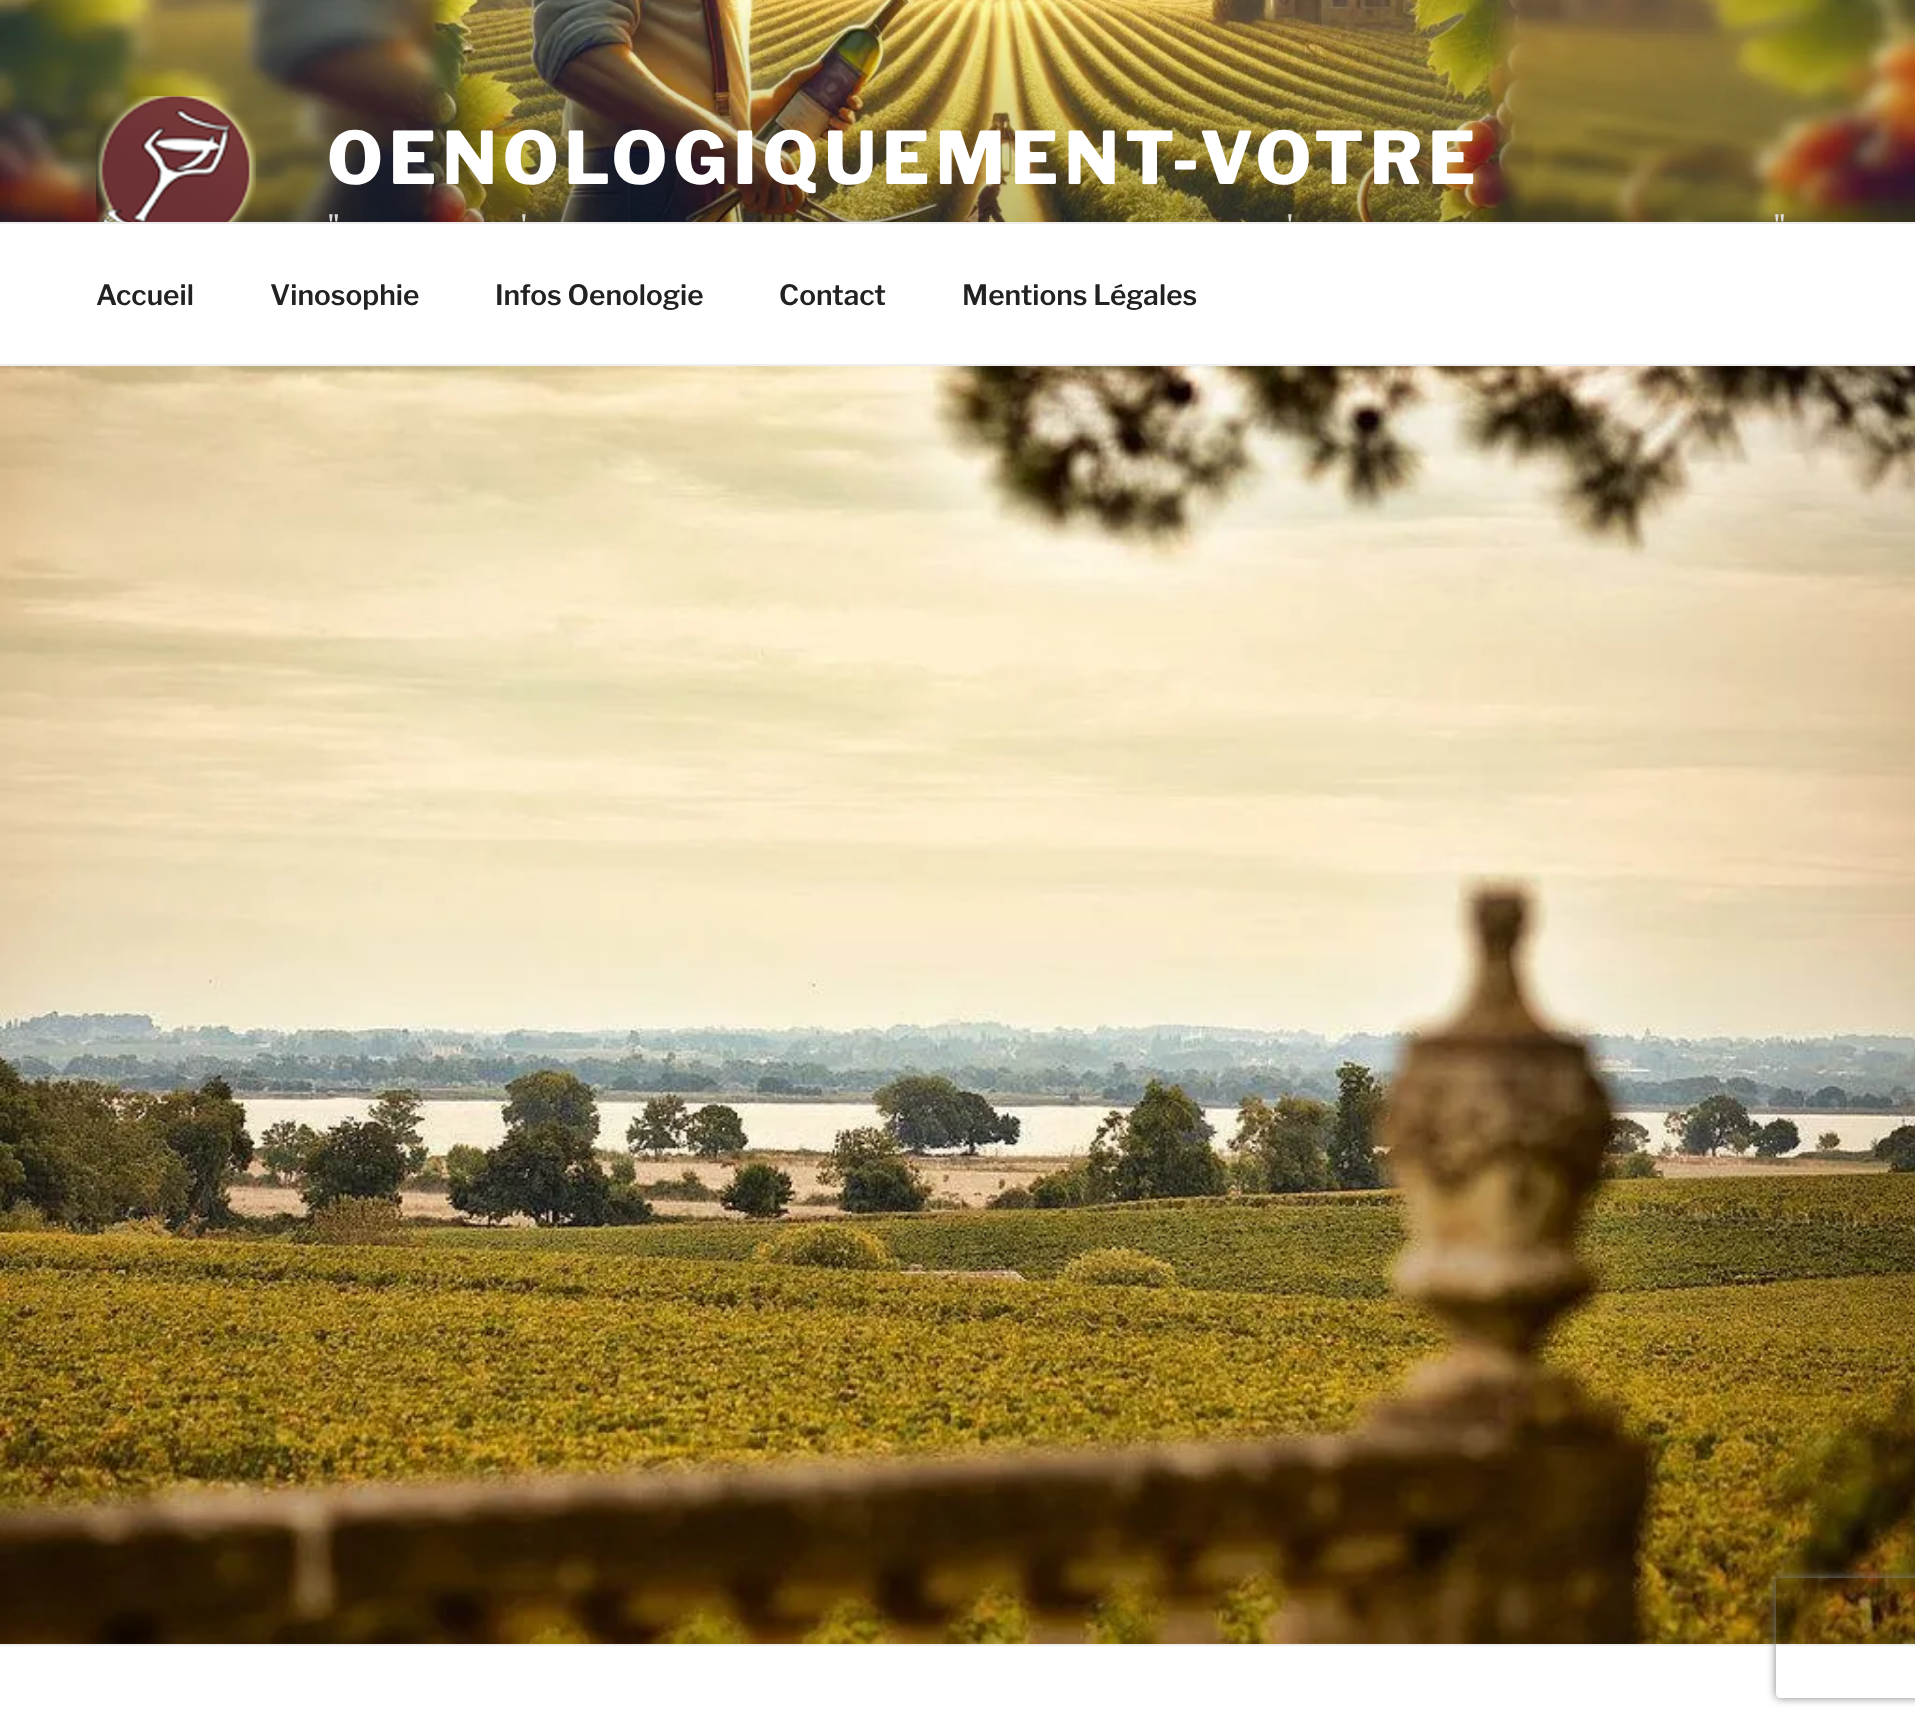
<svg xmlns="http://www.w3.org/2000/svg" width="1915" height="1725">
<defs>
<clipPath id="clip1"><path d="M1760 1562h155v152h-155zm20 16h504c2 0 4 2 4 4v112c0 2-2 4-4 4h-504c-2 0-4-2-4-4v-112c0-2 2-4 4-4z" clip-rule="evenodd"/></clipPath>
</defs>
<rect width="100%" height="100%" fill="#fff"/>
<image x="0" y="0" width="1915" height="222" href="media/1.png"/>
<image x="96" y="96" width="160" height="126" href="media/2.png"/>
<text x="327" y="184" style="font-family:Libre Franklin;font-size:72px;font-weight:100;letter-spacing:5.75px;fill:#fff">OENOLOGIQUEMENT-VOTRE</text>
<text x="327" y="238" style="font-family:'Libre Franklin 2';font-size:32px;font-weight:100;fill:#dcdad4">"</text>
<text x="520" y="238" style="font-family:'Libre Franklin 2';font-size:32px;font-weight:100;fill:#dcdad4">'</text>
<text x="1286" y="238" style="font-family:'Libre Franklin 2';font-size:32px;font-weight:100;fill:#dcdad4">'</text>
<text x="1773" y="238" style="font-family:'Libre Franklin 2';font-size:32px;font-weight:100;fill:#dcdad4">"</text>
<rect y="222" width="1915" height="2" fill="#eee"/>
<rect y="364" width="1915" height="2" fill="#eee"/>
<text x="96" y="305" style="font-family:'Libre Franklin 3';font-size:28px;font-weight:100;fill:#222">Accueil</text>
<text x="270" y="305" style="font-family:'Libre Franklin 3';font-size:28px;font-weight:100;fill:#222">Vinosophie</text>
<text x="495" y="305" style="font-family:'Libre Franklin 3';font-size:28px;font-weight:100;fill:#222">Infos Oenologie</text>
<text x="779" y="305" style="font-family:'Libre Franklin 3';font-size:28px;font-weight:100;fill:#222">Contact</text>
<text x="962" y="305" style="font-family:'Libre Franklin 3';font-size:28px;font-weight:100;fill:#222">Mentions Légales</text>
<rect y="1644" width="1915" height="2" fill="#eee"/>
<image x="0" y="366" width="1915" height="1278" href="media/3.png"/>
<g clip-path="url(#clip1)">
<rect x="1776" y="1578" width="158" height="120" rx="4" fill="#808080" filter="blur(5px)"/>
</g>
</svg>
